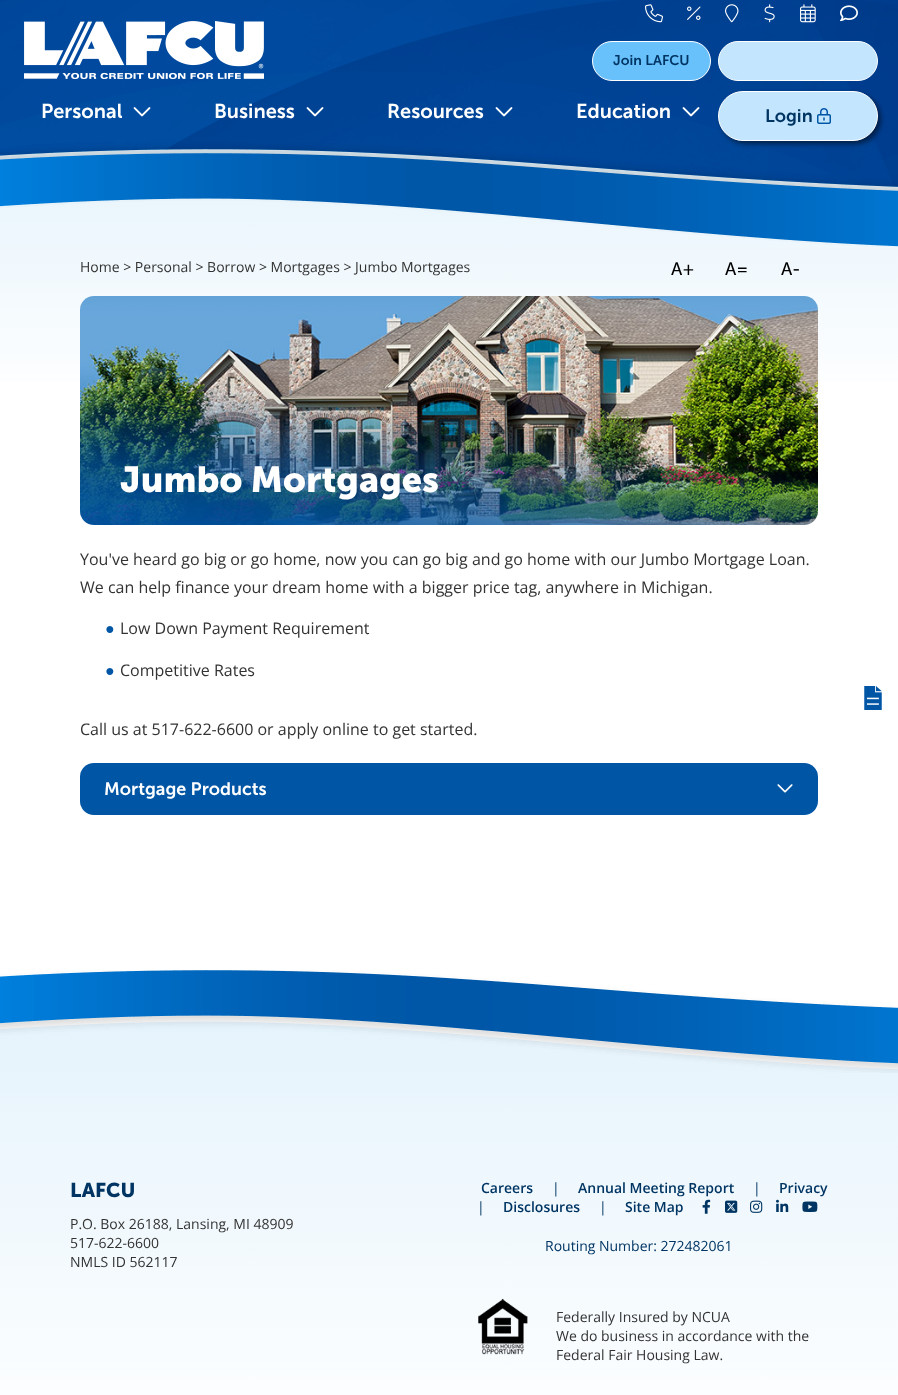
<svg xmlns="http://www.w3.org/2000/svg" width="898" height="1395">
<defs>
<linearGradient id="g1" gradientUnits="userSpaceOnUse" x1="449" y1="147" x2="449" y2="815"><stop offset="0" stop-color="#e5f3fc"/><stop offset="0.39" stop-color="#fff"/><stop offset="1" stop-color="#fff"/></linearGradient>
<linearGradient id="g2" gradientUnits="userSpaceOnUse" x1="449" y1="1018" x2="449" y2="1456"><stop offset="0" stop-color="#e5f3fc"/><stop offset="1" stop-color="#fff"/></linearGradient>
</defs>
<rect width="100%" height="100%" fill="#fff"/>
<rect y="149" width="898" height="233" fill="url(#g1)"/>
<image x="0" y="0" width="898" height="247" href="media/5.png"/>
<text x="41" y="118" style="font-family:'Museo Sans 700';font-size:20px;font-weight:600;fill:#fff">Personal</text>
<image x="133" y="107" width="18" height="10" href="media/1.png"/>
<text x="214" y="118" style="font-family:'Museo Sans 700';font-size:20px;font-weight:600;fill:#fff">Business</text>
<image x="306" y="107" width="18" height="10" href="media/2.png"/>
<text x="387" y="118" style="font-family:'Museo Sans 700';font-size:20px;font-weight:600;fill:#fff">Resources</text>
<image x="495" y="107" width="18" height="10" href="media/3.png"/>
<text x="576" y="118" style="font-family:'Museo Sans 700';font-size:20px;font-weight:600;fill:#fff">Education</text>
<image x="682" y="107" width="18" height="10" href="media/4.png"/>
<image x="24" y="21" width="240" height="58" href="media/6.png"/>
<image x="645" y="4" width="18" height="19" href="media/7.png"/>
<image x="687" y="6" width="14" height="14" href="media/8.png"/>
<image x="725" y="4" width="14" height="19" href="media/9.png"/>
<image x="764" y="4" width="11" height="19" href="media/10.png"/>
<image x="800" y="4" width="16" height="19" href="media/11.png"/>
<image x="840" y="5" width="18" height="17" href="media/12.png"/>
<rect x="718.5" y="41.5" width="159" height="39" rx="19.5" fill="#c3e6fe" stroke="#fff"/>
<rect x="592.5" y="41.5" width="118" height="39" rx="19.5" fill="#69c1fc" stroke="#fff"/>
<text x="613" y="65" style="font-family:'Museo Sans 700';font-size:14px;font-weight:600;fill:#003563">Join LAFCU</text>
<rect x="721" y="94" width="160" height="50" rx="25" fill="#00000080" filter="blur(2.5px)"/>
<rect x="718.5" y="91.5" width="159" height="49" rx="24.5" fill="#c3e6fe" stroke="#fff"/>
<text x="765" y="122" style="font-family:'Museo Sans 700';font-size:18px;font-weight:600;fill:#003563">Login</text>
<image x="817" y="108" width="14" height="16" href="media/13.png"/>
<text x="80" y="272" style="font-family:Open Sans;font-size:14px;fill:#333">Home &gt; Personal &gt; Borrow &gt; Mortgages &gt; Jumbo Mortgages</text>
<text x="671" y="275" style="font-family:'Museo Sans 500';font-size:18px;fill:#000">A+</text>
<text x="725" y="275" style="font-family:'Museo Sans 500';font-size:18px;fill:#000">A=</text>
<text x="781" y="275" style="font-family:'Museo Sans 500';font-size:18px;fill:#000">A-</text>
<image x="80" y="296" width="738" height="229" href="media/14.png"/>
<text x="120" y="492" style="font-family:'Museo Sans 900';font-size:36px;font-weight:bold;fill:#fff">Jumbo Mortgages</text>
<text x="80" y="565" style="font-family:Open Sans;font-size:16px;fill:#333">You've heard go big or go home, now you can go big and go home with our Jumbo Mortgage Loan.</text>
<text x="80" y="593" style="font-family:Open Sans;font-size:16px;fill:#333">We can help finance your dream home with a bigger price tag, anywhere in Michigan.</text>
<text x="105" y="634" style="font-family:Liberation Sans;font-size:16px;fill:#0055a5">●</text>
<text x="120" y="634" style="font-family:Open Sans;font-size:16px;fill:#333">Low Down Payment Requirement</text>
<text x="105" y="676" style="font-family:Liberation Sans;font-size:16px;fill:#0055a5">●</text>
<text x="120" y="676" style="font-family:Open Sans;font-size:16px;fill:#333">Competitive Rates</text>
<text x="80" y="735" style="font-family:Open Sans;font-size:16px;fill:#333">Call us at 517-622-6600 or apply online to get started.</text>
<rect x="80" y="763" width="738" height="52" rx="14" fill="#0055a5"/>
<text x="104" y="795" style="font-family:'Museo Sans 700';font-size:18px;font-weight:600;fill:#fff">Mortgage Products</text>
<image x="777" y="784" width="16" height="9" href="media/15.png"/>
<rect y="1021" width="898" height="374" fill="url(#g2)"/>
<image x="0" y="970" width="898" height="103" href="media/16.png"/>
<text x="70" y="1197" style="font-family:'Museo Sans 900';font-size:20px;font-weight:bold;fill:#003563">LAFCU</text>
<text x="70" y="1229" style="font-family:Open Sans;font-size:14px;fill:#333">P.O. Box 26188, Lansing, MI 48909</text>
<text x="70" y="1248" style="font-family:Open Sans;font-size:14px;fill:#333">517-622-6600</text>
<text x="70" y="1267" style="font-family:Open Sans;font-size:14px;fill:#333">NMLS ID 562117</text>
<text x="481" y="1193" style="font-family:Open Sans;font-size:14px;font-weight:600;fill:#003563">Careers</text>
<text x="552" y="1193" style="font-family:Open Sans;font-size:14px;fill:#003563">|</text>
<text x="578" y="1193" style="font-family:Open Sans;font-size:14px;font-weight:600;fill:#003563">Annual Meeting Report</text>
<text x="753" y="1193" style="font-family:Open Sans;font-size:14px;fill:#003563">|</text>
<text x="779" y="1193" style="font-family:Open Sans;font-size:14px;font-weight:600;fill:#003563">Privacy</text>
<text x="477" y="1212" style="font-family:Open Sans;font-size:14px;fill:#003563">|</text>
<text x="503" y="1212" style="font-family:Open Sans;font-size:14px;font-weight:600;fill:#003563">Disclosures</text>
<text x="599" y="1212" style="font-family:Open Sans;font-size:14px;fill:#003563">|</text>
<text x="625" y="1212" style="font-family:Open Sans;font-size:14px;font-weight:600;fill:#003563">Site Map</text>
<image x="702" y="1199" width="9" height="15" href="media/17.png"/>
<image x="725" y="1200" width="13" height="13" href="media/18.png"/>
<image x="750" y="1200" width="13" height="13" href="media/19.png"/>
<image x="776" y="1199" width="13" height="13" href="media/20.png"/>
<image x="802" y="1201" width="16" height="11" href="media/21.png"/>
<text x="545" y="1251" style="font-family:Open Sans;font-size:14px;fill:#003563">Routing Number: 272482061</text>
<image x="478" y="1298" width="50" height="57" href="media/22.png"/>
<text x="556" y="1322" style="font-family:Open Sans;font-size:14px;fill:#333">Federally Insured by NCUA</text>
<text x="556" y="1341" style="font-family:Open Sans;font-size:14px;fill:#333">We do business in accordance with the</text>
<text x="556" y="1360" style="font-family:Open Sans;font-size:14px;fill:#333">Federal Fair Housing Law.</text>
<image x="864" y="686" width="18" height="24" href="media/23.png"/>
</svg>
